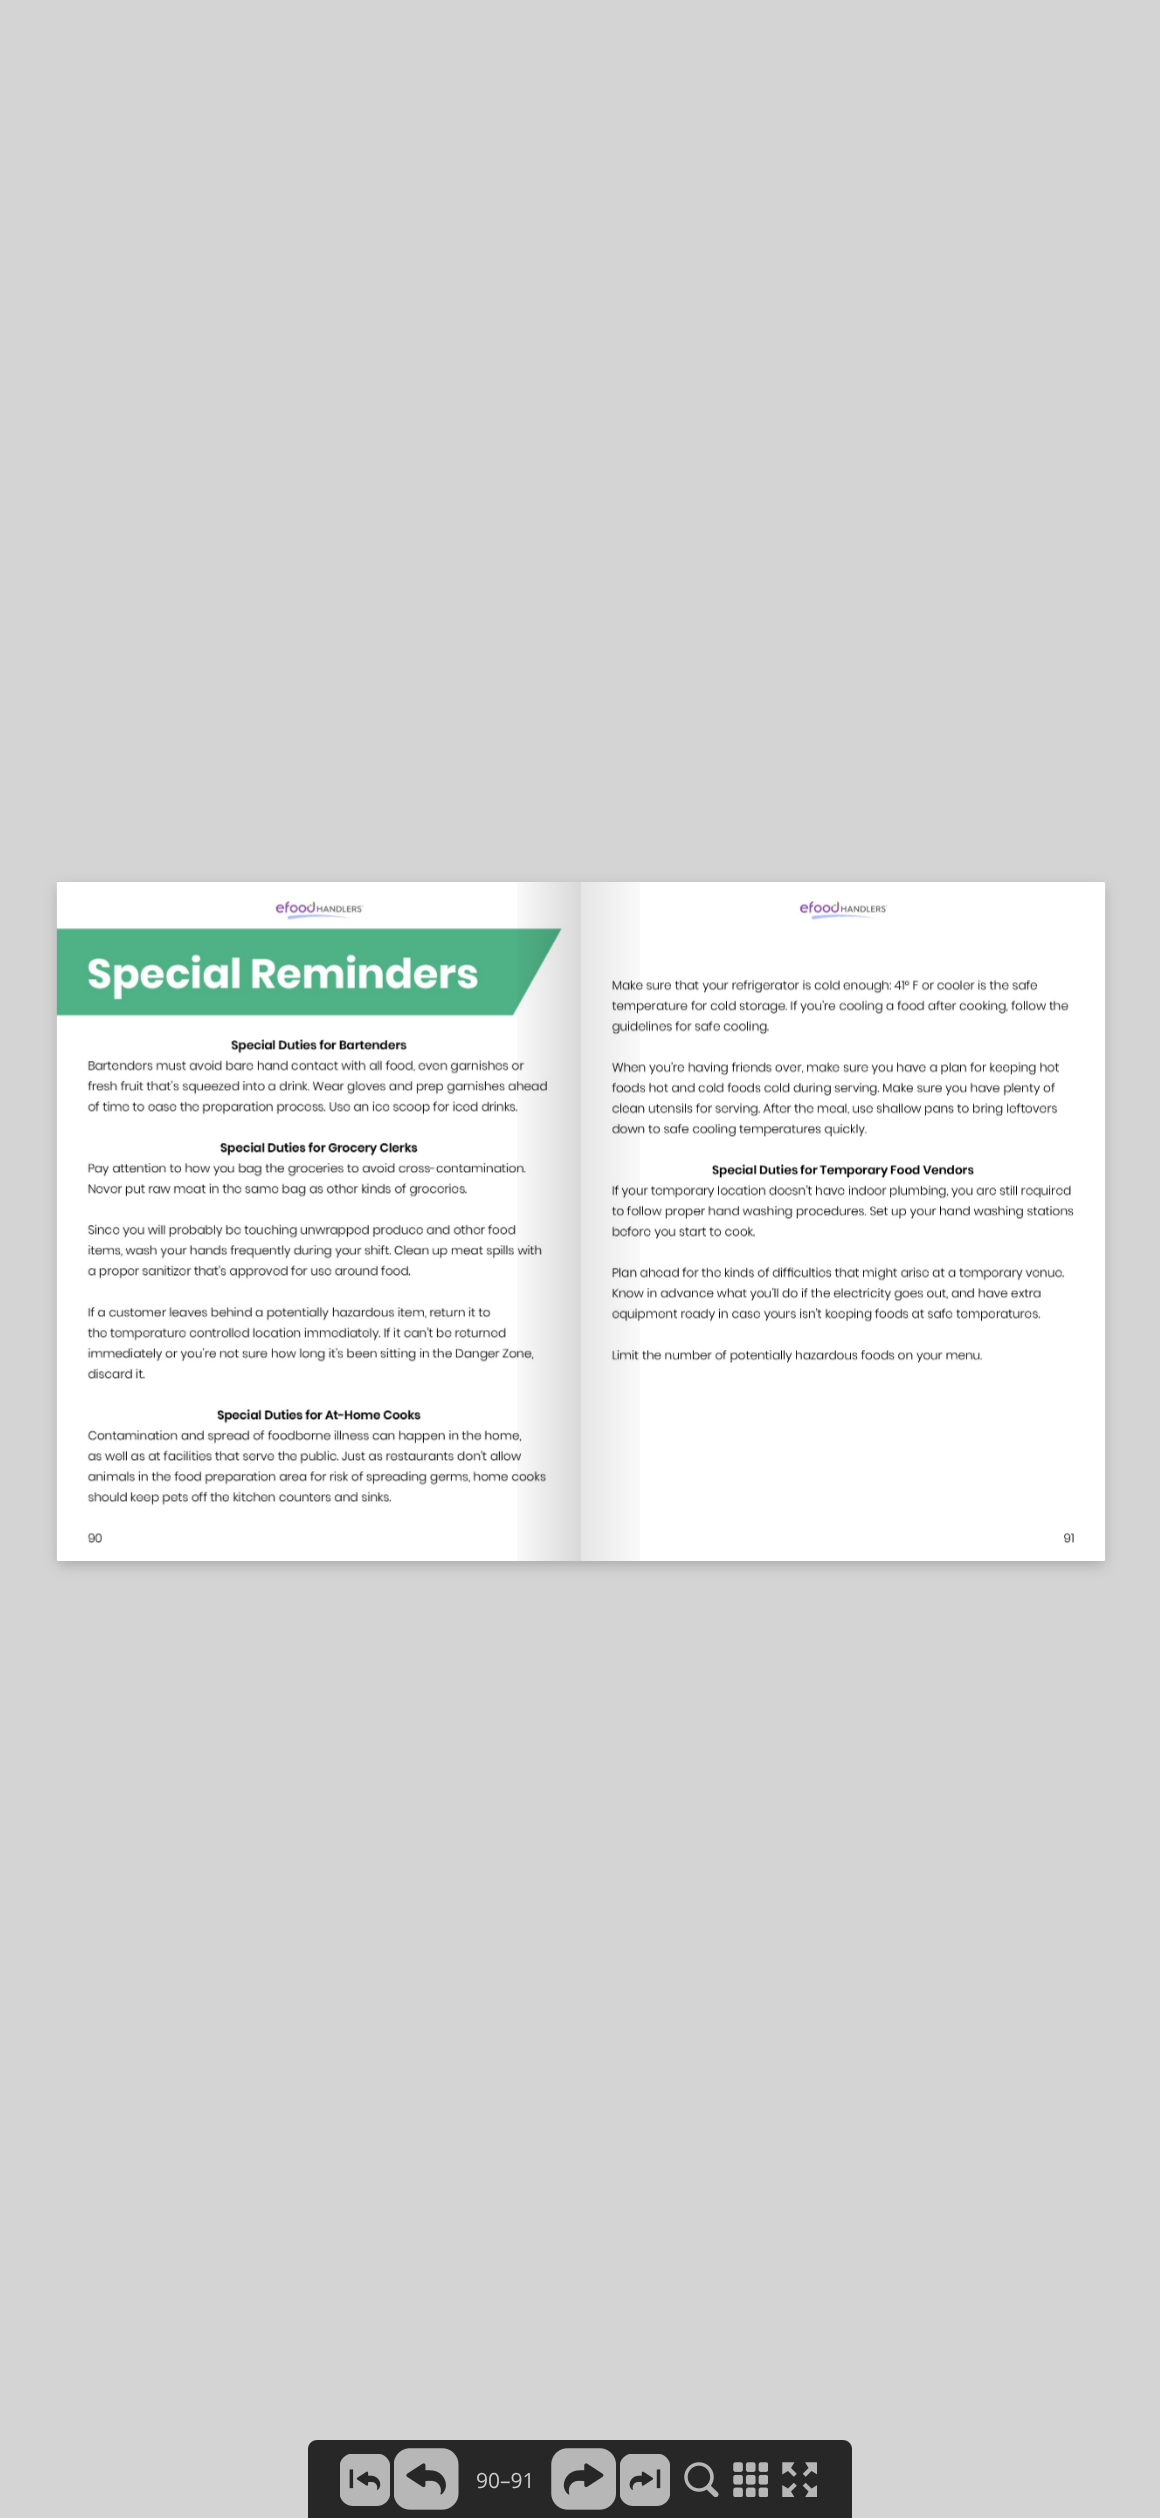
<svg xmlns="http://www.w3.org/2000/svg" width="1160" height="2518">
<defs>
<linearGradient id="g1" gradientUnits="userSpaceOnUse" x1="506" y1="1222" x2="581" y2="1222"><stop offset="0" stop-color="#000" stop-opacity="0"/><stop offset="1" stop-color="#000" stop-opacity="0.15"/></linearGradient>
<linearGradient id="g2" gradientUnits="userSpaceOnUse" x1="581" y1="1222" x2="656" y2="1222"><stop offset="0" stop-color="#000" stop-opacity="0.1"/><stop offset="1" stop-color="#000" stop-opacity="0"/></linearGradient>
</defs>
<rect width="100%" height="100%" fill="#d4d4d4"/>
<rect x="58" y="887" width="1046" height="678" fill="#aaa" filter="blur(6.5px)"/>
<rect x="58" y="882" width="1046" height="679" fill="#fff"/>
<image x="56" y="882" width="525" height="679" href="media/1.png"/>
<rect x="517" y="882" width="64" height="679" fill="url(#g1)"/>
<image x="611" y="882" width="495" height="679" href="media/2.png"/>
<rect x="581" y="882" width="59" height="679" fill="url(#g2)"/>
<path d="M317 2440h526c5 0 9 4 9 9v69h-544v-69c0-5 4-9 9-9z" fill="#272727"/>
<image x="340" y="2454" width="50" height="52" href="media/3.png"/>
<image x="394" y="2448" width="65" height="62" href="media/4.png"/>
<text x="476" y="2488" style="font-family:Open Sans;font-size:21px;fill:#ccc">90–91</text>
<image x="551" y="2448" width="65" height="62" href="media/5.png"/>
<image x="620" y="2454" width="50" height="52" href="media/6.png"/>
<image x="684" y="2462" width="35" height="35" href="media/7.png"/>
<image x="733" y="2462" width="35" height="35" href="media/8.png"/>
<image x="782" y="2462" width="35" height="35" href="media/9.png"/>
</svg>
